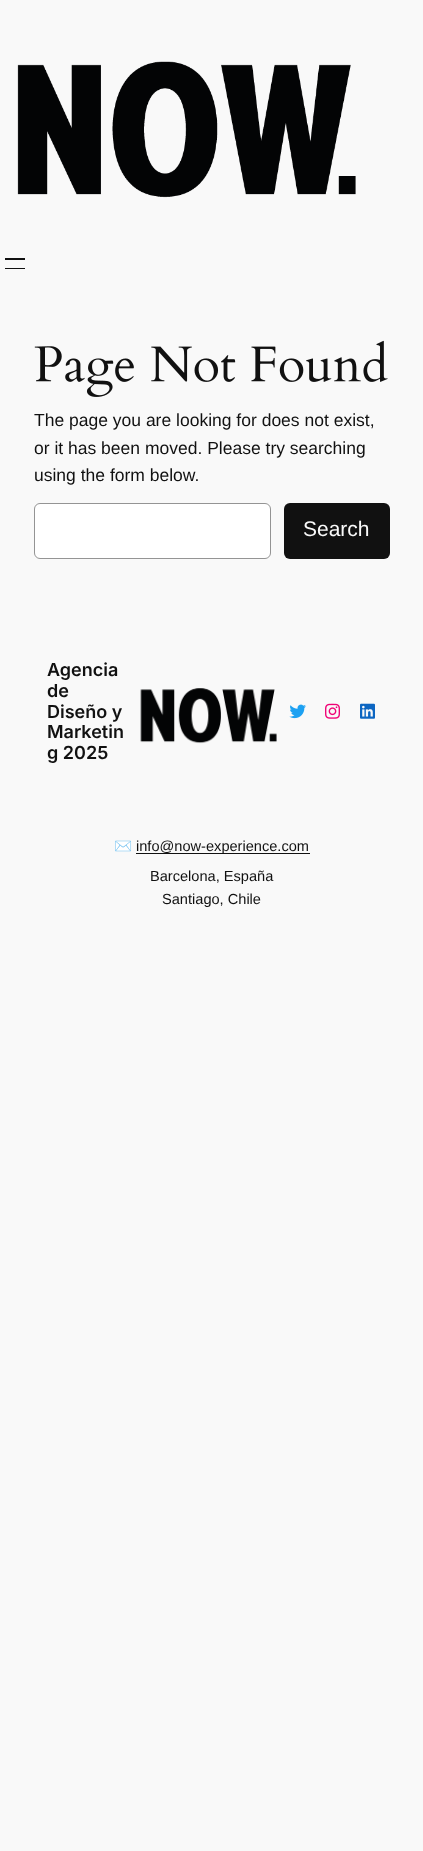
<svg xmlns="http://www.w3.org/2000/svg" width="423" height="1851">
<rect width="100%" height="100%" fill="#f9f9f9"/>
<image x="17" y="61" width="339" height="137" href="media/1.png"/>
<rect x="5" y="258" width="20" height="2" fill="#111"/>
<rect x="5" y="268" width="20" height="1" fill="#111"/>
<image x="34" y="340" width="354" height="57" href="media/2.png"/>
<text x="34" y="426" style="font-family:Liberation Sans;font-size:17.5px;fill:#111">The page you are looking for does not exist,</text>
<text x="34" y="454" style="font-family:Liberation Sans;font-size:17.5px;fill:#111">or it has been moved. Please try searching</text>
<text x="34" y="481" style="font-family:Liberation Sans;font-size:17.5px;fill:#111">using the form below.</text>
<rect x="34.5" y="503.5" width="236" height="55" rx="5.5" fill="#fff" stroke="#949494"/>
<rect x="284" y="503" width="106" height="56" rx="6" fill="#111"/>
<text x="303" y="536" style="font-family:Liberation Sans;font-size:21px;fill:#f9f9f9">Search</text>
<text x="47" y="676" style="font-family:Inter;font-size:18px;font-weight:600;fill:#111">Agencia</text>
<text x="47" y="697" style="font-family:Inter;font-size:18px;font-weight:600;fill:#111">de</text>
<text x="47" y="718" style="font-family:Inter;font-size:18px;font-weight:600;fill:#111">Diseño y</text>
<text x="47" y="738" style="font-family:Inter;font-size:18px;font-weight:600;fill:#111">Marketin</text>
<text x="47" y="759" style="font-family:Inter;font-size:18px;font-weight:600;fill:#111">g 2025</text>
<image x="140" y="688" width="137" height="56" href="media/3.png"/>
<image x="289" y="704" width="17" height="15" href="media/4.png"/>
<image x="325" y="703" width="15" height="16" href="media/5.png"/>
<image x="360" y="703" width="15" height="16" href="media/6.png"/>
<text x="114" y="851" style="font-family:Noto Color Emoji;font-size:14.6px;fill:#111">✉️</text>
<rect x="136" y="853" width="174" height="1" fill="#111"/>
<text x="136" y="851" style="font-family:Liberation Sans;font-size:14.6px;fill:#111">info@now-experience.com</text>
<text x="150" y="881" style="font-family:Liberation Sans;font-size:14.6px;fill:#111">Barcelona, España</text>
<text x="162" y="904" style="font-family:Liberation Sans;font-size:14.6px;fill:#111">Santiago, Chile</text>
</svg>
